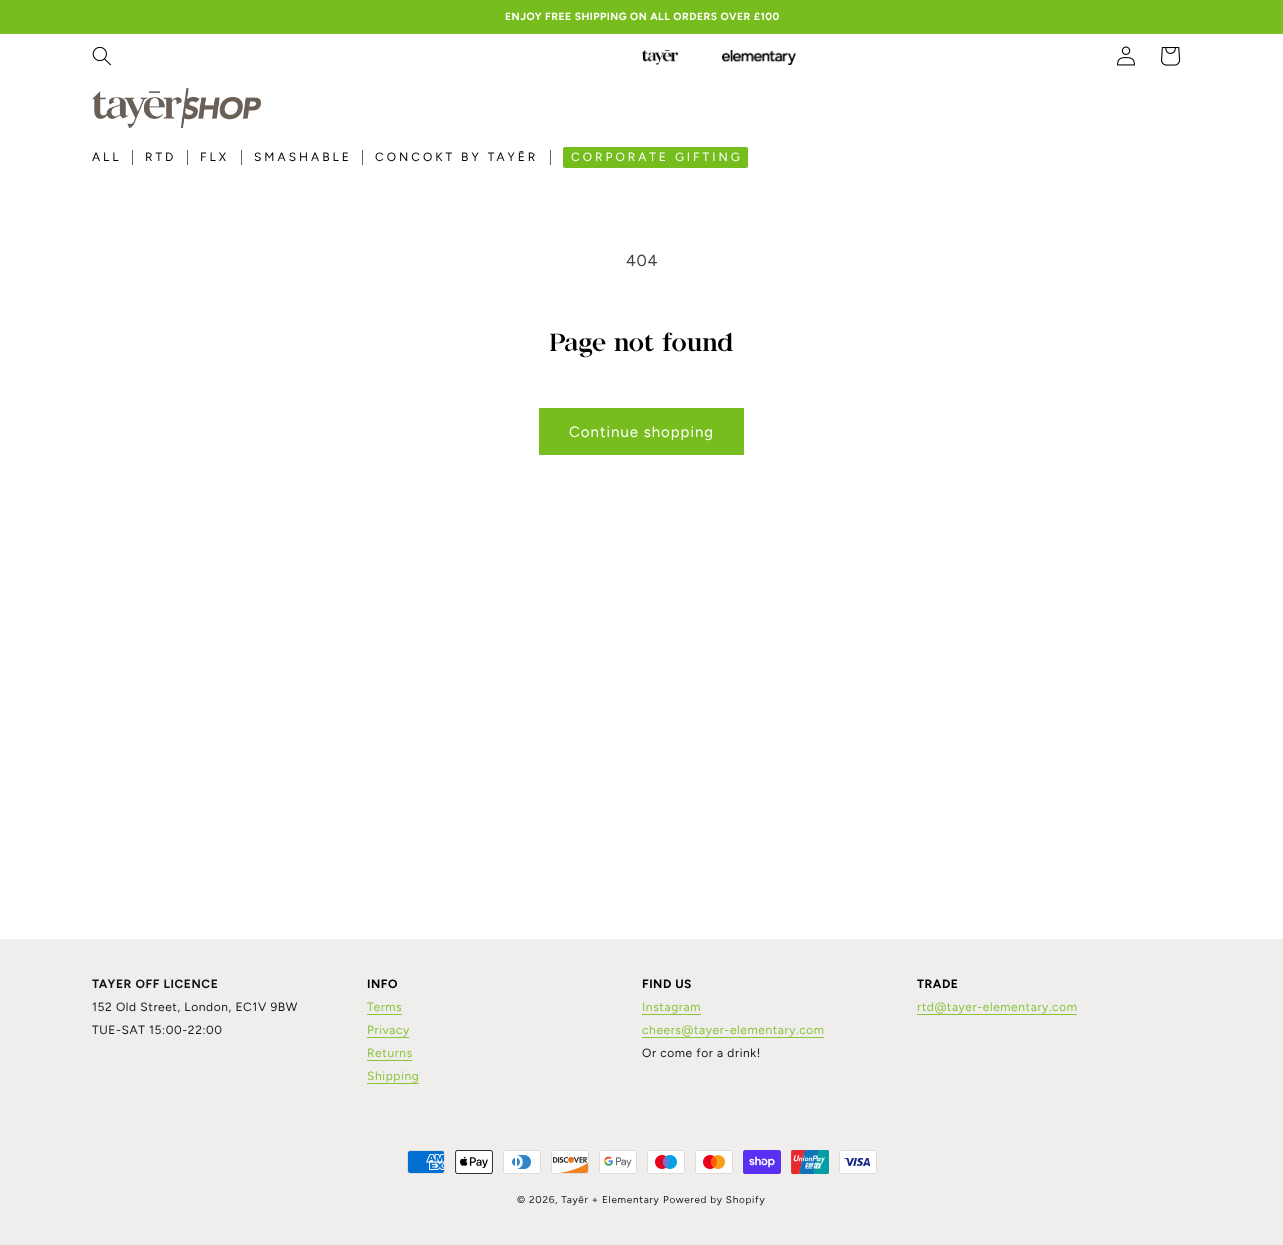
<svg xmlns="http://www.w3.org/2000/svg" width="1283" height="1245">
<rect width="100%" height="100%" fill="#fff"/>
<rect width="1283" height="33" fill="#76bd1d"/>
<rect y="33" width="1283" height="1" fill="#81c22f"/>
<text x="505" y="20" style="font-family:Figtree;font-size:10.4px;font-weight:bold;letter-spacing:0.5px;fill:#fff">ENJOY FREE SHIPPING ON ALL ORDERS OVER £100</text>
<image x="92" y="46" width="19" height="20" href="media/1.png"/>
<image x="642" y="50" width="36" height="15" href="media/2.png"/>
<image x="722" y="50" width="74" height="15" href="media/3.png"/>
<image x="1117" y="46" width="18" height="20" href="media/4.png"/>
<image x="1161" y="47" width="20" height="19" href="media/5.png"/>
<image x="92" y="88" width="169" height="40" href="media/6.png"/>
<text x="92" y="161" style="font-family:Figtree;font-size:12px;letter-spacing:3px;fill:#000">ALL</text>
<rect x="132" y="150" width="1" height="15" fill="#6a6057"/>
<text x="145" y="161" style="font-family:Figtree;font-size:12px;letter-spacing:3px;fill:#000">RTD</text>
<rect x="187" y="150" width="1" height="15" fill="#6a6057"/>
<text x="200" y="161" style="font-family:Figtree;font-size:12px;letter-spacing:3px;fill:#000">FLX</text>
<rect x="241" y="150" width="1" height="15" fill="#6a6057"/>
<text x="254" y="161" style="font-family:Figtree;font-size:12px;letter-spacing:3px;fill:#000">SMASHABLE</text>
<rect x="362" y="150" width="1" height="15" fill="#6a6057"/>
<text x="375" y="161" style="font-family:Figtree;font-size:12px;letter-spacing:3px;fill:#000">CONCOKT BY TAYĒR</text>
<rect x="550" y="150" width="1" height="15" fill="#6a6057"/>
<rect x="563" y="147" width="185" height="21" rx="2" fill="#75bd1d"/>
<text x="571" y="161" style="font-family:Figtree;font-size:12px;letter-spacing:3px;fill:#fff">CORPORATE GIFTING</text>
<text x="626" y="266" style="font-family:Figtree;font-size:16px;letter-spacing:0.6px;fill:#404040">404</text>
<text x="549" y="351" style="font-family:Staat;font-size:25.5px;font-weight:bold;letter-spacing:0.5px;fill:#000">Page not found</text>
<rect x="539" y="408" width="205" height="47" fill="#76bd1d"/>
<text x="569" y="437" style="font-family:Figtree;font-size:15px;letter-spacing:1px;fill:#fff">Continue shopping</text>
<rect y="939" width="1283" height="306" fill="#f0eeed"/>
<text x="92" y="988" style="font-family:Figtree;font-size:12px;font-weight:bold;letter-spacing:0.6px;fill:#15131b">TAYER OFF LICENCE</text>
<text x="92" y="1011" style="font-family:Figtree;font-size:12px;letter-spacing:0.6px;fill:#15131b">152 Old Street, London, EC1V 9BW</text>
<text x="92" y="1034" style="font-family:Figtree;font-size:12px;letter-spacing:0.6px;fill:#15131b">TUE-SAT 15:00-22:00</text>
<text x="367" y="988" style="font-family:Figtree;font-size:12px;font-weight:bold;letter-spacing:0.5px;fill:#000">INFO</text>
<text x="367" y="1011" style="font-family:Figtree;font-size:12px;letter-spacing:0.6px;fill:#88c43c">Terms</text>
<rect x="367" y="1014" width="35" height="1" fill="#88c43c"/>
<text x="367" y="1034" style="font-family:Figtree;font-size:12px;letter-spacing:0.6px;fill:#88c43c">Privacy</text>
<rect x="367" y="1037" width="42" height="1" fill="#88c43c"/>
<text x="367" y="1057" style="font-family:Figtree;font-size:12px;letter-spacing:0.6px;fill:#88c43c">Returns</text>
<rect x="367" y="1060" width="45" height="1" fill="#88c43c"/>
<text x="367" y="1080" style="font-family:Figtree;font-size:12px;letter-spacing:0.6px;fill:#88c43c">Shipping</text>
<rect x="367" y="1083" width="52" height="1" fill="#88c43c"/>
<text x="642" y="988" style="font-family:Figtree;font-size:12px;font-weight:bold;letter-spacing:0.5px;fill:#000">FIND US</text>
<text x="642" y="1011" style="font-family:Figtree;font-size:12px;letter-spacing:0.6px;fill:#88c43c">Instagram</text>
<rect x="642" y="1014" width="59" height="1" fill="#88c43c"/>
<text x="642" y="1034" style="font-family:Figtree;font-size:12px;letter-spacing:0.6px;fill:#88c43c">cheers@tayer-elementary.com</text>
<rect x="642" y="1037" width="182" height="1" fill="#88c43c"/>
<text x="642" y="1057" style="font-family:Figtree;font-size:12px;letter-spacing:0.6px;fill:#15131b">Or come for a drink!</text>
<text x="917" y="988" style="font-family:Figtree;font-size:12px;font-weight:bold;letter-spacing:0.5px;fill:#000">TRADE</text>
<text x="917" y="1011" style="font-family:Figtree;font-size:12px;letter-spacing:0.6px;fill:#88c43c">rtd@tayer-elementary.com</text>
<rect x="917" y="1014" width="160" height="1" fill="#88c43c"/>
<image x="407" y="1150" width="38" height="24" href="media/7.png"/>
<image x="455" y="1150" width="38" height="24" href="media/8.png"/>
<image x="503" y="1150" width="38" height="24" href="media/9.png"/>
<image x="551" y="1150" width="38" height="24" href="media/10.png"/>
<image x="599" y="1150" width="38" height="24" href="media/11.png"/>
<image x="647" y="1150" width="38" height="24" href="media/12.png"/>
<image x="695" y="1150" width="38" height="24" href="media/13.png"/>
<image x="743" y="1150" width="38" height="24" href="media/14.png"/>
<image x="791" y="1150" width="38" height="24" href="media/15.png"/>
<image x="839" y="1150" width="38" height="24" href="media/16.png"/>
<text x="517" y="1203" style="font-family:Figtree;font-size:10px;letter-spacing:0.7px;fill:#15131b">© 2026, Tayēr + Elementary</text>
<text x="663" y="1203" style="font-family:Figtree;font-size:10px;letter-spacing:0.7px;fill:#15131b">Powered by Shopify</text>
</svg>
